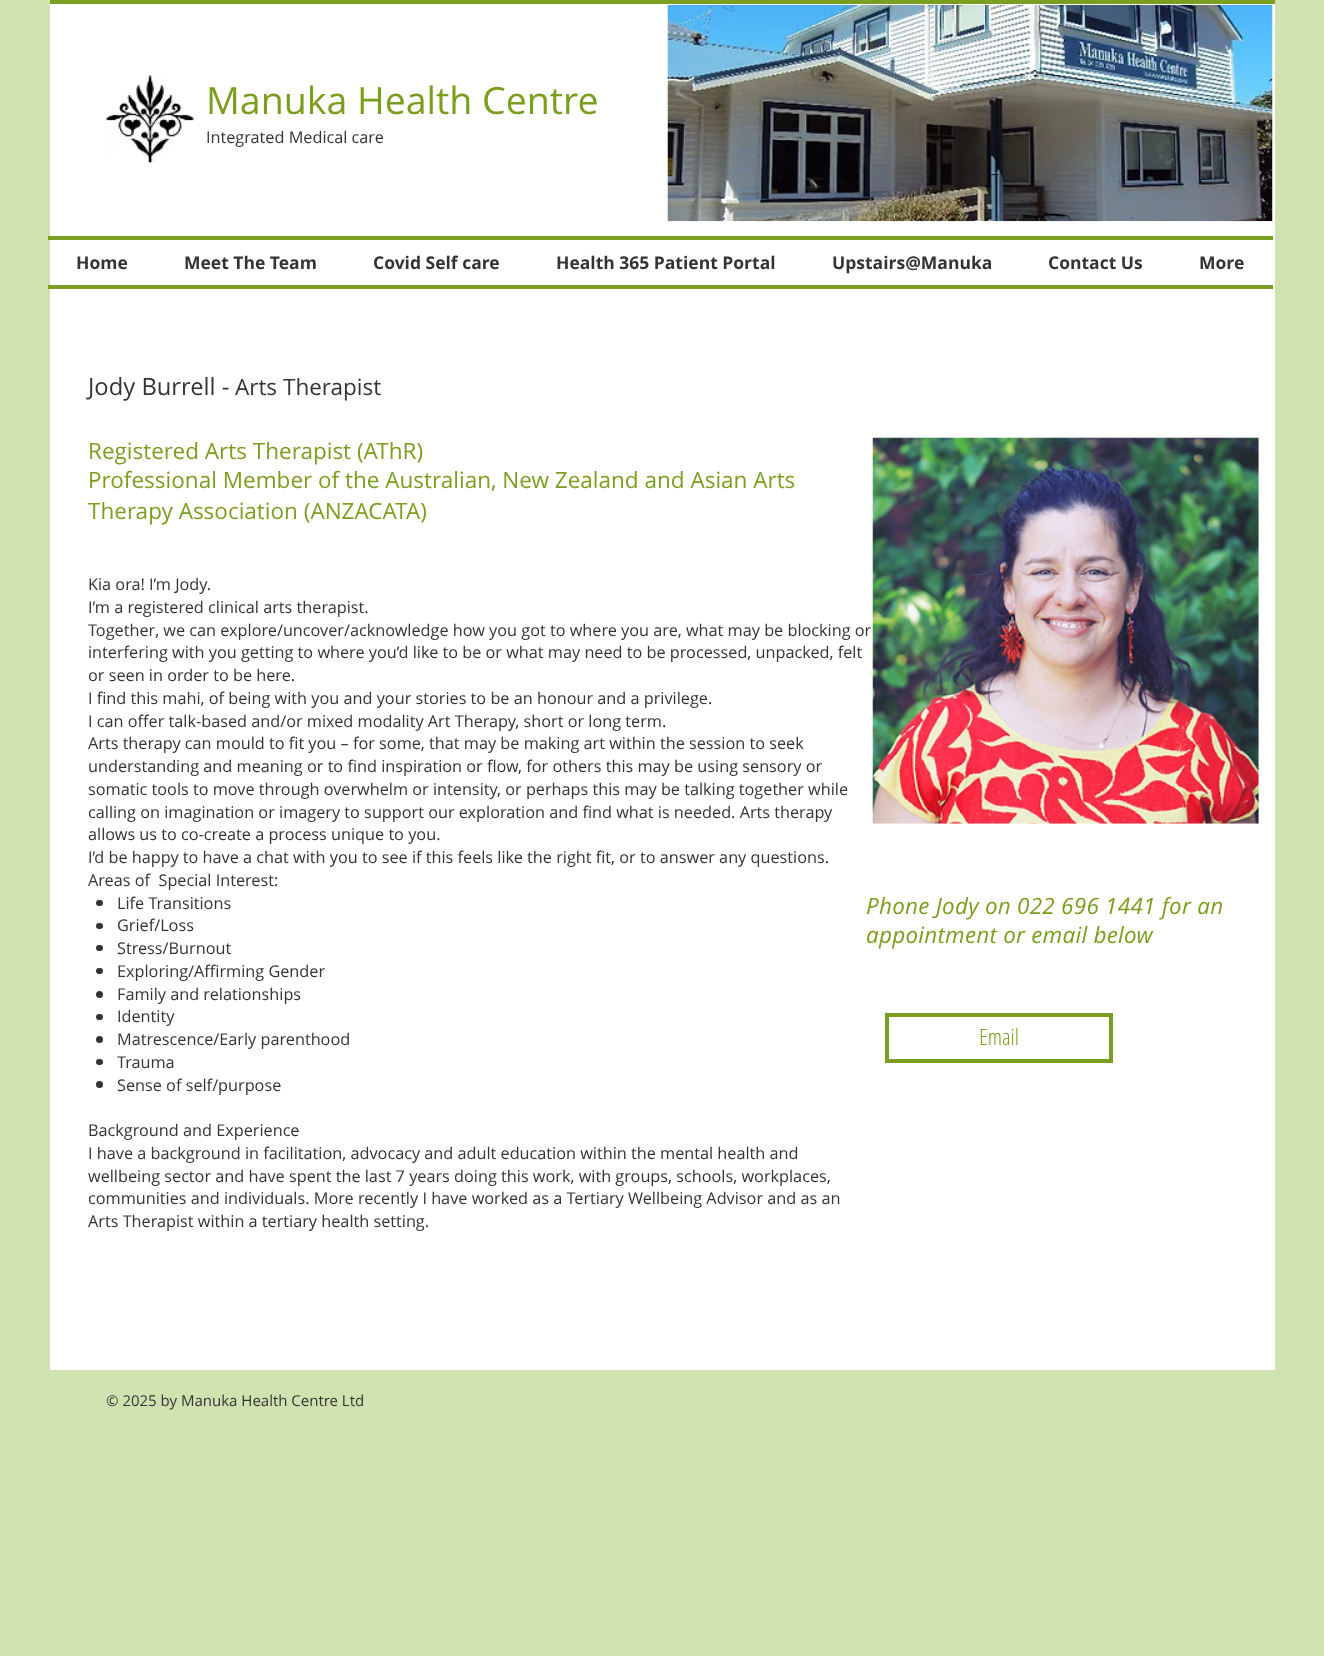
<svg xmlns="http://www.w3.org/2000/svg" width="1324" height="1656">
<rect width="100%" height="100%" fill="#d0e2b0"/>
<rect x="50" y="4" width="1225" height="1366" fill="#fff"/>
<rect x="50" width="1225" height="4" fill="#7a9e1e"/>
<image x="106" y="75" width="88" height="88" href="media/1.png"/>
<text x="206" y="114" style="font-family:Open Sans;font-size:37.5px;fill:#7a9e1e">Manuka Health Centre</text>
<text x="206" y="143" style="font-family:Open Sans;font-size:16.25px;fill:#343434">Integrated Medical care</text>
<image x="667" y="5" width="606" height="217" href="media/2.png"/>
<rect x="48" y="236" width="1225" height="4" fill="#7a9e1e"/>
<rect x="48" y="285" width="1225" height="4" fill="#7a9e1e"/>
<text x="76" y="269" style="font-family:Open Sans;font-size:17.5px;font-weight:bold;fill:#343434">Home</text>
<text x="184" y="269" style="font-family:Open Sans;font-size:17.5px;font-weight:bold;fill:#343434">Meet The Team</text>
<text x="373" y="269" style="font-family:Open Sans;font-size:17.5px;font-weight:bold;fill:#343434">Covid Self care</text>
<text x="556" y="269" style="font-family:Open Sans;font-size:17.5px;font-weight:bold;fill:#343434">Health 365 Patient Portal</text>
<text x="832" y="269" style="font-family:Open Sans;font-size:17.5px;font-weight:bold;fill:#343434">Upstairs@Manuka</text>
<text x="1048" y="269" style="font-family:Open Sans;font-size:17.5px;font-weight:bold;fill:#343434">Contact Us</text>
<text x="1199" y="269" style="font-family:Open Sans;font-size:17.5px;font-weight:bold;fill:#343434">More</text>
<text x="88" y="395" style="font-family:Open Sans;font-size:23.75px;fill:#343434">Jody Burrell -</text>
<text x="235" y="395" style="font-family:Open Sans;font-size:22.5px;fill:#343434">Arts Therapist</text>
<text x="88" y="459" style="font-family:Open Sans;font-size:22.5px;fill:#7a9e1e">Registered Arts Therapist (AThR)</text>
<text x="88" y="488" style="font-family:Open Sans;font-size:22.5px;fill:#7a9e1e">Professional Member of the Australian, New Zealand and Asian Arts</text>
<text x="88" y="519" style="font-family:Open Sans;font-size:22.5px;fill:#7a9e1e">Therapy Association (ANZACATA)</text>
<text x="88" y="590" style="font-family:Open Sans;font-size:16.25px;fill:#343434">Kia ora! I’m Jody.</text>
<text x="88" y="613" style="font-family:Open Sans;font-size:16.25px;fill:#343434">I’m a registered clinical arts therapist.</text>
<text x="88" y="636" style="font-family:Open Sans;font-size:16.25px;fill:#343434">Together, we can explore/uncover/acknowledge how you got to where you are, what may be blocking or</text>
<text x="88" y="658" style="font-family:Open Sans;font-size:16.25px;fill:#343434">interfering with you getting to where you’d like to be or what may need to be processed, unpacked, felt</text>
<text x="88" y="681" style="font-family:Open Sans;font-size:16.25px;fill:#343434">or seen in order to be here.</text>
<text x="88" y="704" style="font-family:Open Sans;font-size:16.25px;fill:#343434">I find this mahi, of being with you and your stories to be an honour and a privilege.</text>
<text x="88" y="727" style="font-family:Open Sans;font-size:16.25px;fill:#343434">I can offer talk-based and/or mixed modality Art Therapy, short or long term.</text>
<text x="88" y="749" style="font-family:Open Sans;font-size:16.25px;fill:#343434">Arts therapy can mould to fit you – for some, that may be making art within the session to seek</text>
<text x="88" y="772" style="font-family:Open Sans;font-size:16.25px;fill:#343434">understanding and meaning or to find inspiration or flow, for others this may be using sensory or</text>
<text x="88" y="795" style="font-family:Open Sans;font-size:16.25px;fill:#343434">somatic tools to move through overwhelm or intensity, or perhaps this may be talking together while</text>
<text x="88" y="818" style="font-family:Open Sans;font-size:16.25px;fill:#343434">calling on imagination or imagery to support our exploration and find what is needed. Arts therapy</text>
<text x="88" y="840" style="font-family:Open Sans;font-size:16.25px;fill:#343434">allows us to co-create a process unique to you.</text>
<text x="88" y="863" style="font-family:Open Sans;font-size:16.25px;fill:#343434">I’d be happy to have a chat with you to see if this feels like the right fit, or to answer any questions.</text>
<text x="88" y="886" style="font-family:Open Sans;font-size:16.25px;fill:#343434" xml:space="preserve">Areas of  Special Interest:</text>
<rect x="96" y="900" width="7" height="6" rx="3" fill="#343434"/>
<text x="117" y="909" style="font-family:Open Sans;font-size:16.25px;fill:#343434">Life Transitions</text>
<rect x="96" y="923" width="7" height="6" rx="3" fill="#343434"/>
<text x="117" y="931" style="font-family:Open Sans;font-size:16.25px;fill:#343434">Grief/Loss</text>
<rect x="96" y="945" width="7" height="6" rx="3" fill="#343434"/>
<text x="117" y="954" style="font-family:Open Sans;font-size:16.25px;fill:#343434">Stress/Burnout</text>
<rect x="96" y="968" width="7" height="6" rx="3" fill="#343434"/>
<text x="117" y="977" style="font-family:Open Sans;font-size:16.25px;fill:#343434">Exploring/Affirming Gender</text>
<circle cx="99.5" cy="994.5" r="3.5" fill="#343434"/>
<text x="117" y="1000" style="font-family:Open Sans;font-size:16.25px;fill:#343434">Family and relationships</text>
<rect x="96" y="1014" width="7" height="6" rx="3" fill="#343434"/>
<text x="117" y="1022" style="font-family:Open Sans;font-size:16.25px;fill:#343434">Identity</text>
<circle cx="99.5" cy="1039.5" r="3.5" fill="#343434"/>
<text x="117" y="1045" style="font-family:Open Sans;font-size:16.25px;fill:#343434">Matrescence/Early parenthood</text>
<rect x="96" y="1059" width="7" height="6" rx="3" fill="#343434"/>
<text x="117" y="1068" style="font-family:Open Sans;font-size:16.25px;fill:#343434">Trauma</text>
<circle cx="99.5" cy="1084.5" r="3.5" fill="#343434"/>
<text x="117" y="1091" style="font-family:Open Sans;font-size:16.25px;fill:#343434">Sense of self/purpose</text>
<text x="88" y="1136" style="font-family:Open Sans;font-size:16.25px;fill:#343434">Background and Experience</text>
<text x="88" y="1159" style="font-family:Open Sans;font-size:16.25px;fill:#343434">I have a background in facilitation, advocacy and adult education within the mental health and</text>
<text x="88" y="1182" style="font-family:Open Sans;font-size:16.25px;fill:#343434">wellbeing sector and have spent the last 7 years doing this work, with groups, schools, workplaces,</text>
<text x="88" y="1204" style="font-family:Open Sans;font-size:16.25px;fill:#343434">communities and individuals. More recently I have worked as a Tertiary Wellbeing Advisor and as an</text>
<text x="88" y="1227" style="font-family:Open Sans;font-size:16.25px;fill:#343434">Arts Therapist within a tertiary health setting.</text>
<image x="872" y="437" width="387" height="387" href="media/3.png"/>
<text x="866" y="914" style="font-family:Open Sans;font-size:22.5px;font-style:italic;letter-spacing:0.25px;fill:#7a9e1e">Phone Jody on 022 696 1441 for an</text>
<text x="866" y="943" style="font-family:Open Sans;font-size:22.5px;font-style:italic;letter-spacing:0.25px;fill:#7a9e1e">appointment or email below</text>
<rect x="887" y="1015" width="224" height="46" fill="none" stroke="#7a9e1e" stroke-width="4"/>
<text x="979" y="1045" style="font-family:Open Sans Condensed;font-size:22.5px;font-weight:300;fill:#7a9e1e">Email</text>
<text x="106" y="1406" style="font-family:Open Sans;font-size:15px;fill:#343434">© 2025 by Manuka Health Centre Ltd</text>
</svg>
